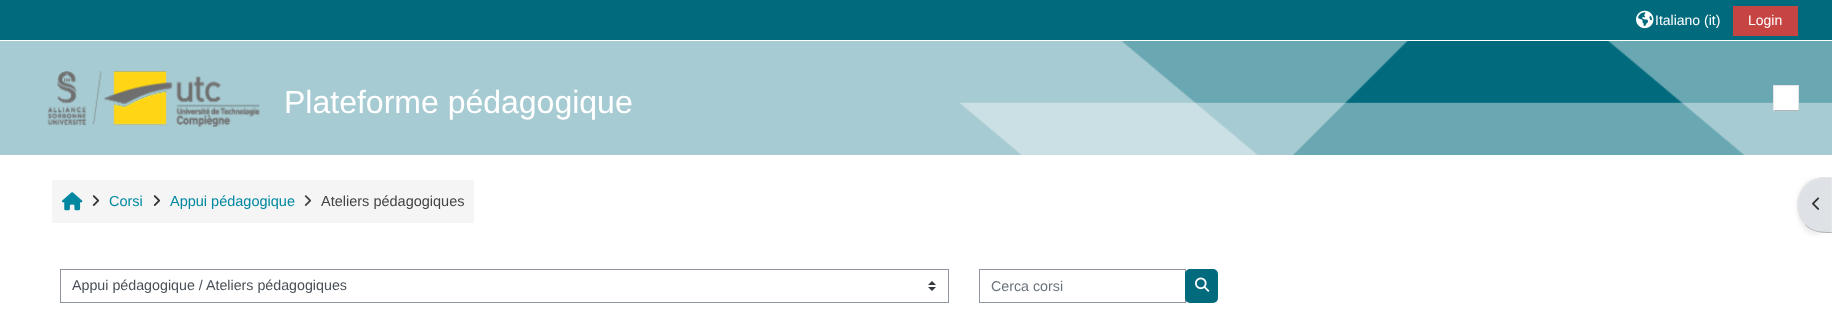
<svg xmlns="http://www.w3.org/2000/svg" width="1832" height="309">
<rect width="100%" height="100%" fill="#fff"/>
<rect y="41" width="1832" height="114" fill="#016a7d"/>
<image x="0" y="41" width="1832" height="114" href="media/1.png"/>
<rect width="1832" height="40" fill="#016a7d"/>
<image x="1636" y="10" width="18" height="19" href="media/2.png"/>
<text x="1655" y="25" style="font-family:Liberation Sans;font-size:14px;fill:#fff">Italiano (it)</text>
<rect x="1733" y="6" width="65" height="30" fill="#c64543"/>
<text x="1748" y="25" style="font-family:Liberation Sans;font-size:14px;fill:#fff">Login</text>
<image x="47" y="71" width="213" height="56" href="media/3.png"/>
<text x="284" y="113" style="font-family:Liberation Sans;font-size:32px;fill:#fff">Plateforme pédagogique</text>
<rect x="1774" y="86" width="24" height="24" fill="#fff"/>
<rect x="1773" y="85" width="26" height="1" fill="#e6e6e6"/>
<rect x="1798" y="85" width="1" height="26" fill="#e6e6e6"/>
<rect x="1773" y="110" width="26" height="1" fill="#b3b3b3"/>
<rect x="1773" y="85" width="1" height="26" fill="#e6e6e6"/>
<rect x="52" y="180" width="422" height="43" fill="#f5f5f5"/>
<image x="62" y="192" width="21" height="19" href="media/4.png"/>
<image x="92" y="195" width="8" height="11" href="media/5.png"/>
<text x="109" y="206" style="font-family:Liberation Sans;font-size:14.5px;fill:#0188a0">Corsi</text>
<image x="153" y="195" width="8" height="11" href="media/5.png"/>
<text x="170" y="206" style="font-family:Liberation Sans;font-size:14.5px;fill:#0188a0">Appui pédagogique</text>
<image x="304" y="195" width="8" height="11" href="media/6.png"/>
<text x="321" y="206" style="font-family:Liberation Sans;font-size:14.5px;fill:#444">Ateliers pédagogiques</text>
<image x="928" y="281" width="8" height="10" href="media/7.png"/>
<rect x="60.5" y="269.5" width="888" height="33" fill="none" stroke="#8f959e"/>
<text x="72" y="290" style="font-family:Liberation Sans;font-size:14.25px;fill:#495057">Appui pédagogique / Ateliers pédagogiques</text>
<rect x="979.5" y="269.5" width="206" height="33" fill="none" stroke="#8f959e"/>
<text x="991" y="291" style="font-family:Liberation Sans;font-size:14.25px;fill:#6a737b">Cerca corsi</text>
<rect x="1185" y="269" width="33" height="34" rx="5" fill="#016a7d"/>
<image x="1195" y="277" width="15" height="15" href="media/8.png"/>
<rect x="1797" y="179" width="35" height="56" rx="28" fill="#00000012" filter="blur(2px)"/>
<path d="M1825 177h7v56h-7c-15.5 0-28-12.5-28-28c0-15.5 12.5-28 28-28z" fill="#dee2e6"/>
<path d="M1825 177c-8.5 0-15 3-20 8l1 1c7-7.5 15.5-8 25-8l1-1z" fill="#e6e6e6"/>
<path d="M1832 177l-1 1v54l1 1z" fill="#e6e6e6"/>
<path d="M1832 233l-1-1c-9.5 0-18.5-.5-25.5-7.5l-.5 .5c7.5 7.5 16.5 8 27 8z" fill="#b3b3b3"/>
<path d="M1805 185c-10 10.5-11 29 0 40l.5-.5c-10-10.5-9-28.5 .5-38.5z" fill="#e6e6e6"/>
<image x="1812" y="197" width="8" height="13" href="media/9.png"/>
</svg>
